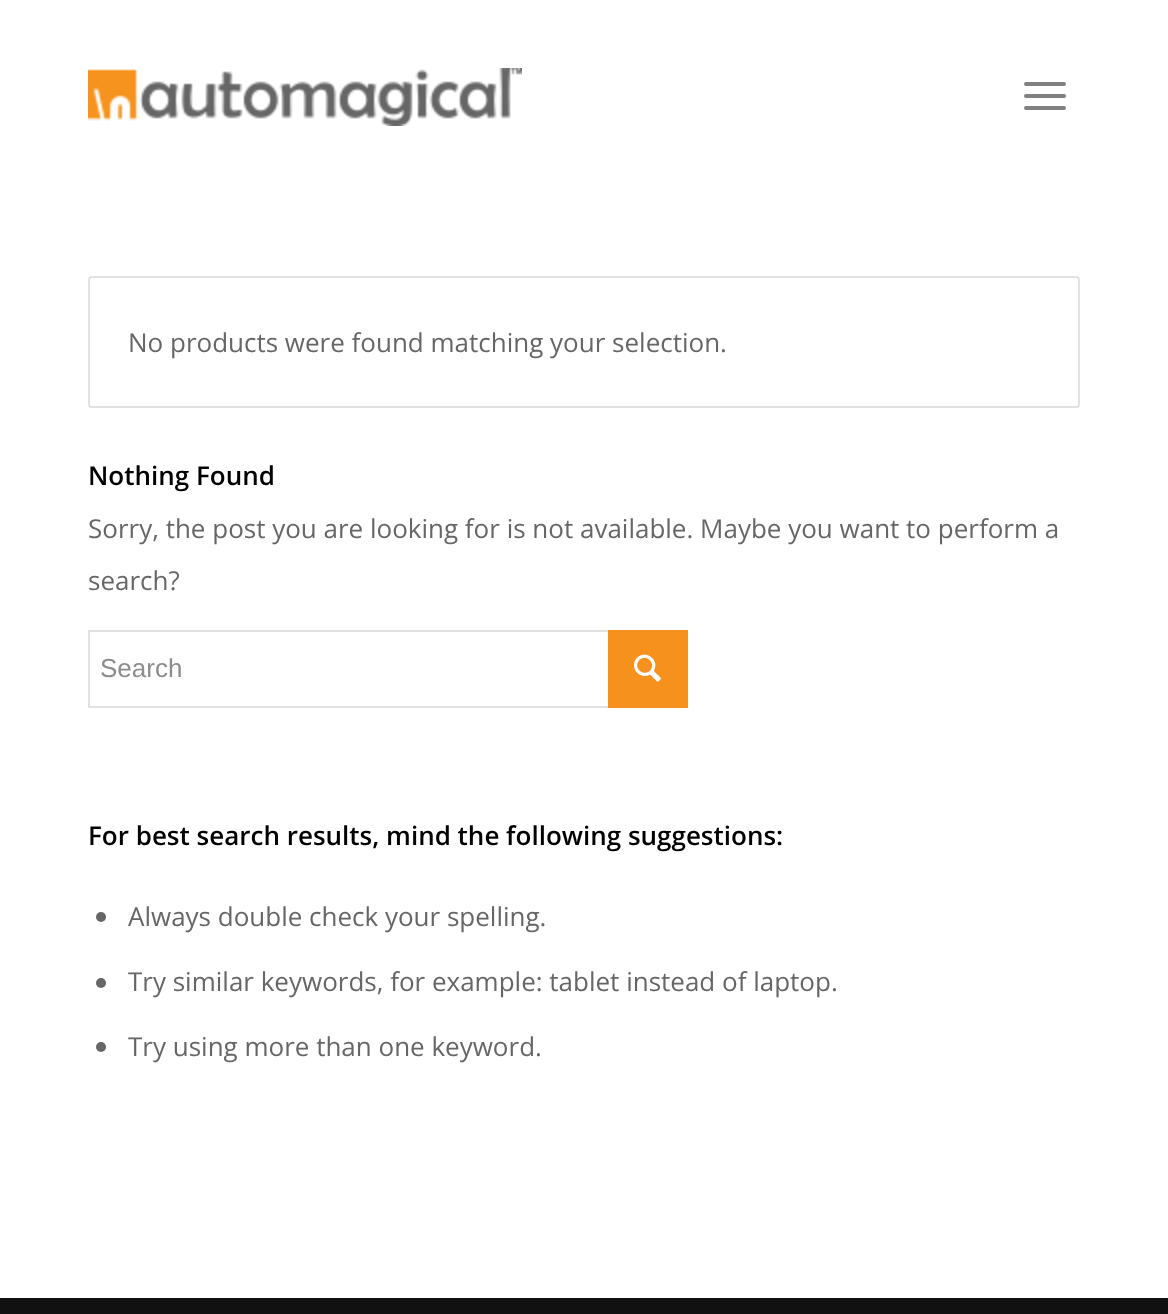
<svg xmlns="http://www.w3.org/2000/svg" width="1168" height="1314">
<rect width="100%" height="100%" fill="#fff"/>
<image x="88" y="68" width="434" height="58" href="media/1.png"/>
<rect x="1024" y="94" width="42" height="4" rx="2" fill="#808080"/>
<rect x="1024" y="82" width="42" height="4" rx="2" fill="#808080"/>
<rect x="1024" y="106" width="42" height="4" rx="2" fill="#808080"/>
<rect x="89" y="277" width="990" height="130" rx="3" fill="none" stroke="#e1e1e1" stroke-width="2"/>
<text x="128" y="352" style="font-family:Open Sans;font-size:26px;fill:#666">No products were found matching your selection.</text>
<text x="88" y="485" style="font-family:Open Sans;font-size:26px;font-weight:600;fill:#000">Nothing Found</text>
<text x="88" y="538" style="font-family:Open Sans;font-size:26px;fill:#666">Sorry, the post you are looking for is not available. Maybe you want to perform a</text>
<text x="88" y="590" style="font-family:Open Sans;font-size:26px;fill:#666">search?</text>
<rect x="89" y="631" width="598" height="76" fill="none" stroke="#e1e1e1" stroke-width="2"/>
<text x="100" y="677" style="font-family:Liberation Sans;font-size:26px;fill:#8d8d8d">Search</text>
<rect x="608" y="630" width="80" height="78" fill="#f6911e"/>
<image x="634" y="654" width="27" height="28" href="media/2.png"/>
<text x="88" y="845" style="font-family:Open Sans;font-size:26px;font-weight:600;fill:#000">For best search results, mind the following suggestions:</text>
<circle cx="101" cy="917" r="5" fill="#666"/>
<text x="128" y="926" style="font-family:Open Sans;font-size:26px;fill:#666">Always double check your spelling.</text>
<circle cx="101" cy="983" r="5" fill="#666"/>
<text x="128" y="991" style="font-family:Open Sans;font-size:26px;fill:#666">Try similar keywords, for example: tablet instead of laptop.</text>
<circle cx="101" cy="1047" r="5" fill="#666"/>
<text x="128" y="1056" style="font-family:Open Sans;font-size:26px;fill:#666">Try using more than one keyword.</text>
<rect y="1298" width="1168" height="16" fill="#111"/>
</svg>
